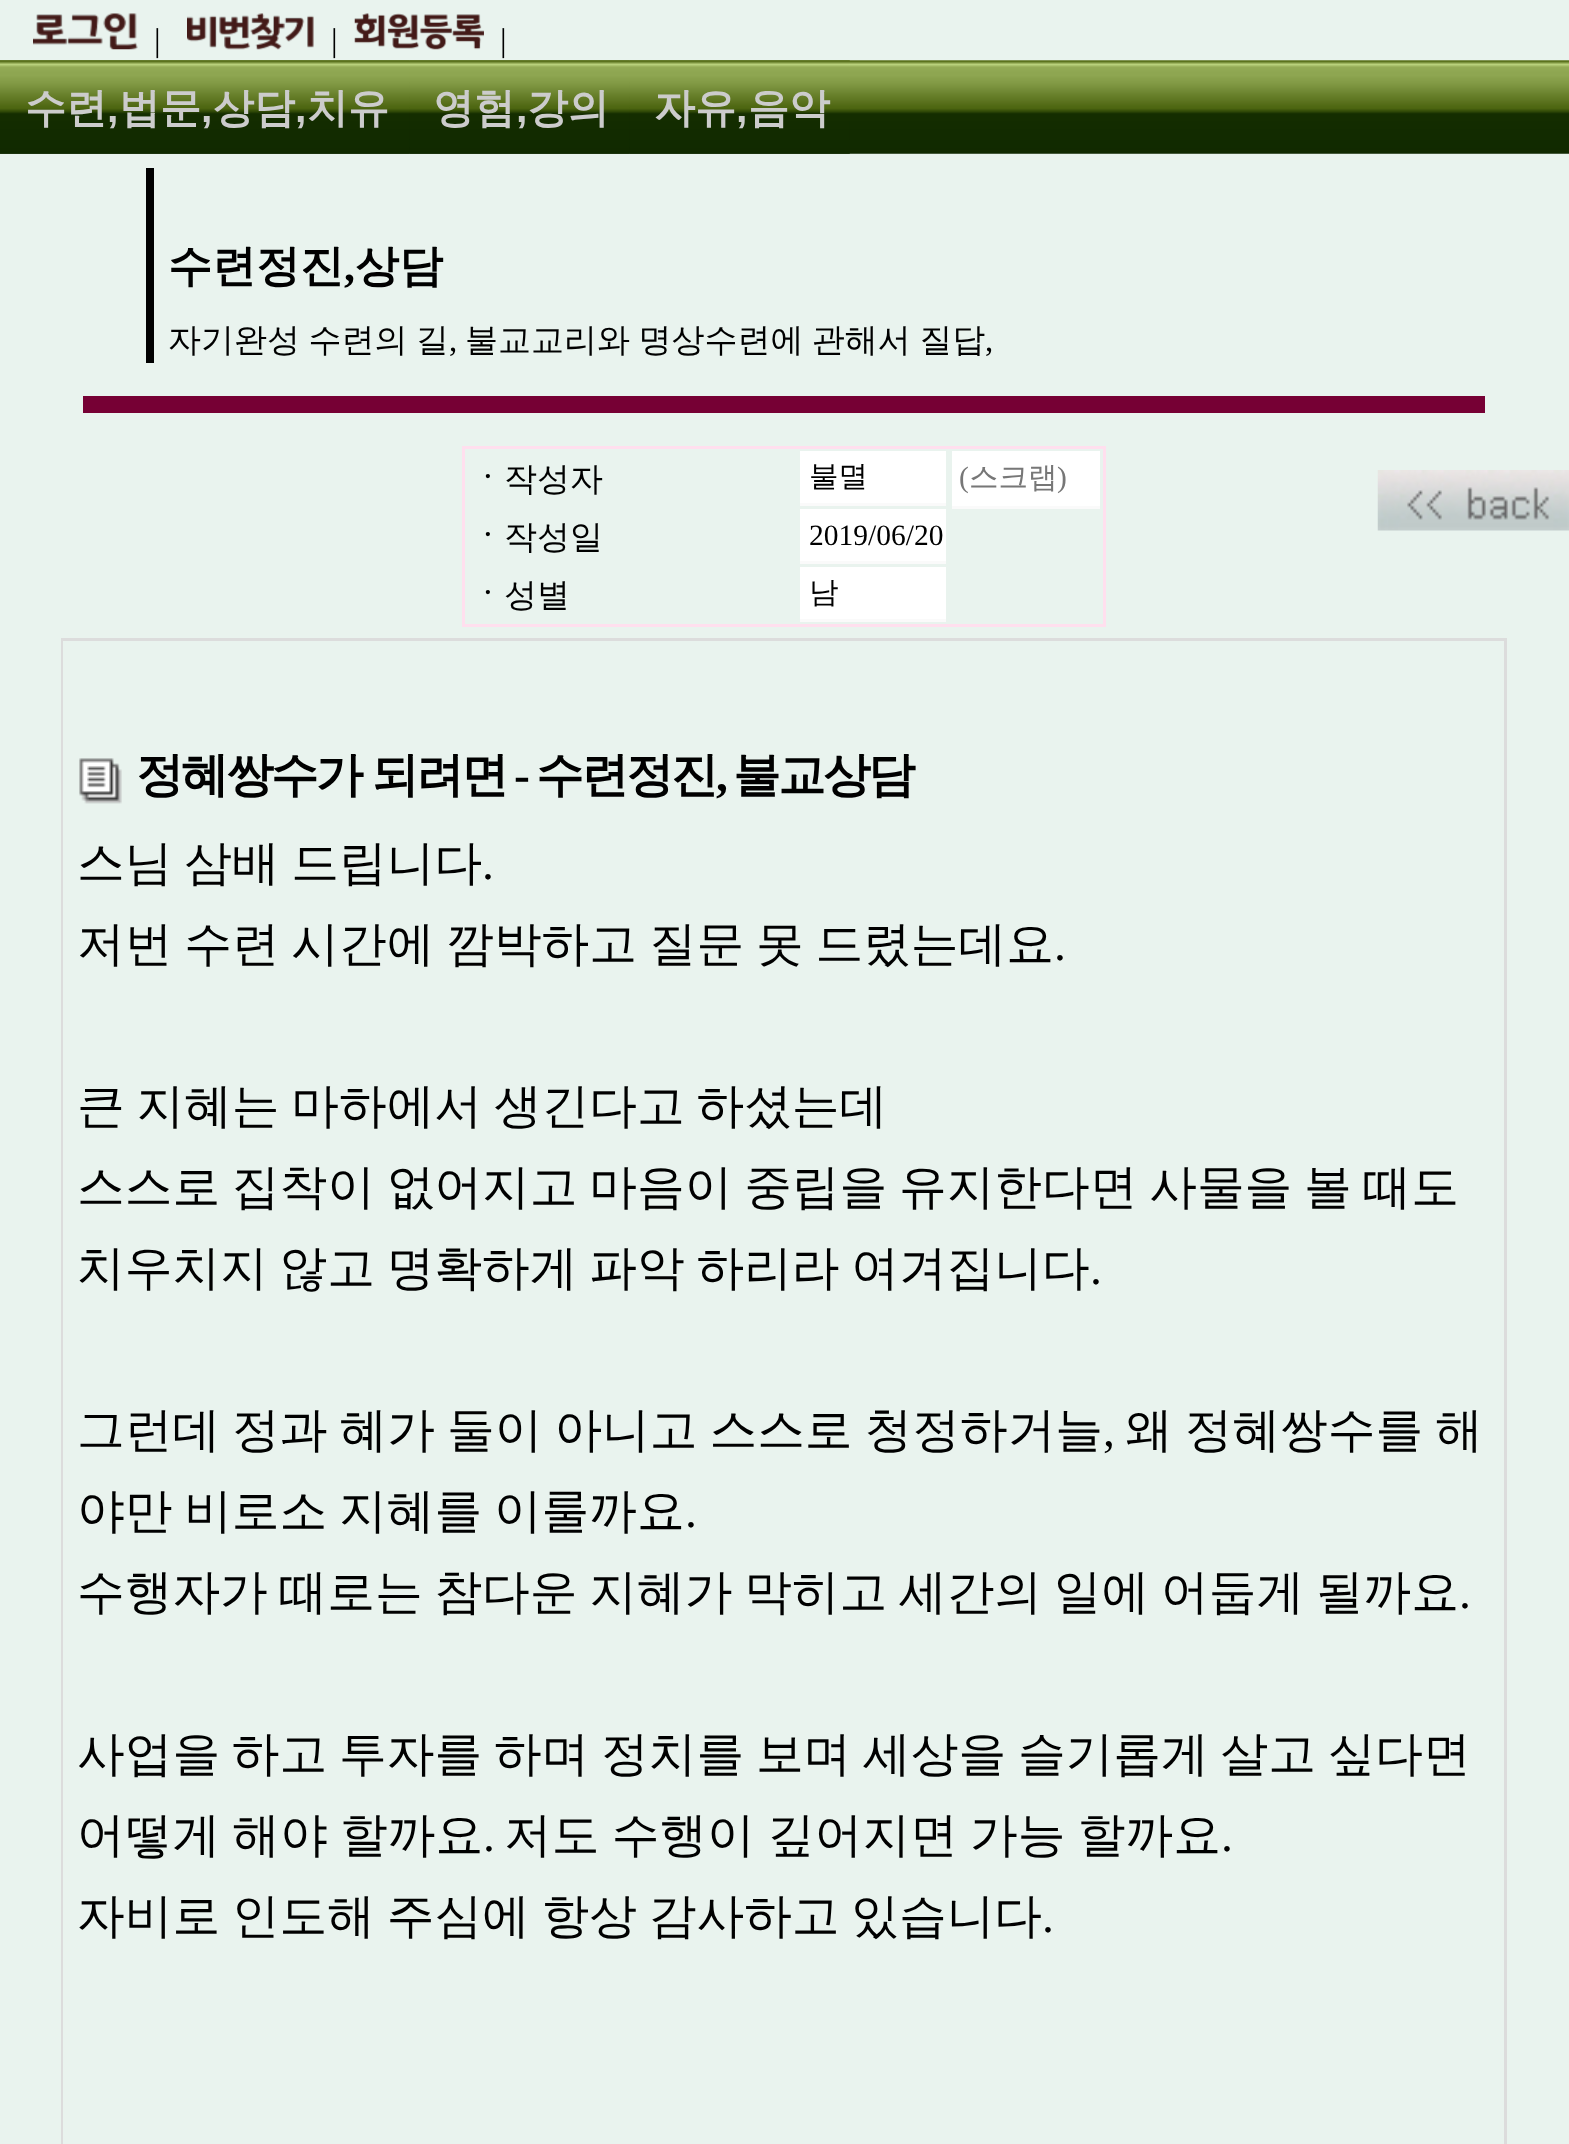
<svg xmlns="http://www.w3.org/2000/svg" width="1569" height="2144">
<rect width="100%" height="100%" fill="#e9f3ee"/>
<image x="33" y="13" width="105" height="37" href="media/1.png"/>
<text x="154" y="51" style="font-family:Liberation Serif;font-size:33px;fill:#000">|</text>
<image x="187" y="13" width="127" height="37" href="media/2.png"/>
<text x="331" y="51" style="font-family:Liberation Serif;font-size:33px;fill:#000">|</text>
<image x="354" y="13" width="130" height="37" href="media/3.png"/>
<text x="500" y="51" style="font-family:Liberation Serif;font-size:33px;fill:#000">|</text>
<image x="0" y="60" width="1569" height="94" href="media/4.png"/>
<image x="0" y="60" width="410" height="94" href="media/5.png"/>
<text x="25" y="122" style="font-family:WenQuanYi Zen Hei;font-size:41px;font-weight:bold;fill:#ccc">수련</text>
<text x="107" y="122" style="font-family:Liberation Sans;font-size:41px;font-weight:bold;fill:#ccc">,</text>
<text x="119" y="122" style="font-family:WenQuanYi Zen Hei;font-size:41px;font-weight:bold;fill:#ccc">법문</text>
<text x="201" y="122" style="font-family:Liberation Sans;font-size:41px;font-weight:bold;fill:#ccc">,</text>
<text x="213" y="122" style="font-family:WenQuanYi Zen Hei;font-size:41px;font-weight:bold;fill:#ccc">상담</text>
<text x="295" y="122" style="font-family:Liberation Sans;font-size:41px;font-weight:bold;fill:#ccc">,</text>
<text x="307" y="122" style="font-family:WenQuanYi Zen Hei;font-size:41px;font-weight:bold;fill:#ccc">치유</text>
<image x="409" y="60" width="221" height="94" href="media/6.png"/>
<text x="433" y="122" style="font-family:WenQuanYi Zen Hei;font-size:41px;font-weight:bold;fill:#ccc">영험</text>
<text x="516" y="122" style="font-family:Liberation Sans;font-size:41px;font-weight:bold;fill:#ccc">,</text>
<text x="527" y="122" style="font-family:WenQuanYi Zen Hei;font-size:41px;font-weight:bold;fill:#ccc">강의</text>
<image x="629" y="60" width="221" height="94" href="media/7.png"/>
<text x="654" y="122" style="font-family:WenQuanYi Zen Hei;font-size:41px;font-weight:bold;fill:#ccc">자유</text>
<text x="736" y="122" style="font-family:Liberation Sans;font-size:41px;font-weight:bold;fill:#ccc">,</text>
<text x="748" y="122" style="font-family:WenQuanYi Zen Hei;font-size:41px;font-weight:bold;fill:#ccc">음악</text>
<rect x="146" y="168" width="8" height="195" fill="#000"/>
<text x="168" y="281" style="font-family:WenQuanYi Zen Hei;font-size:44px;font-weight:bold;fill:#000">수련정진</text>
<text x="344" y="281" style="font-family:Liberation Serif;font-size:44px;font-weight:bold;fill:#000">,</text>
<text x="355" y="281" style="font-family:WenQuanYi Zen Hei;font-size:44px;font-weight:bold;fill:#000">상담</text>
<text x="168" y="351" word-spacing="-1.5" style="font-family:WenQuanYi Zen Hei;font-size:33px;font-weight:500;fill:#000">자기완성 수련의 길</text>
<text x="449" y="351" style="font-family:Liberation Serif;font-size:33px;fill:#000">,</text>
<text x="465" y="351" word-spacing="-1.5" style="font-family:WenQuanYi Zen Hei;font-size:33px;font-weight:500;fill:#000">불교교리와 명상수련에 관해서 질답</text>
<text x="985" y="351" style="font-family:Liberation Serif;font-size:33px;fill:#000">,</text>
<rect x="83" y="396" width="1402" height="17" fill="#760034"/>
<rect x="463.5" y="447.5" width="641" height="178" fill="none" stroke="#ffdfee" stroke-width="3"/>
<text x="471" y="490" style="font-family:WenQuanYi Zen Hei;font-size:33px;font-weight:bold;fill:#000">ㆍ</text>
<text x="504" y="490" style="font-family:WenQuanYi Zen Hei;font-size:33px;font-weight:500;fill:#000">작성자</text>
<rect x="800" y="451" width="146" height="52" fill="#fff"/>
<rect x="800" y="503" width="146" height="3" fill="#fafafa"/>
<text x="809" y="486" style="font-family:WenQuanYi Zen Hei;font-size:29.5px;font-weight:500;fill:#000">불멸</text>
<text x="471" y="548" style="font-family:WenQuanYi Zen Hei;font-size:33px;font-weight:bold;fill:#000">ㆍ</text>
<text x="504" y="548" style="font-family:WenQuanYi Zen Hei;font-size:33px;font-weight:500;fill:#000">작성일</text>
<rect x="800" y="509" width="146" height="52" fill="#fff"/>
<rect x="800" y="561" width="146" height="3" fill="#fafafa"/>
<text x="809" y="545" style="font-family:Liberation Serif;font-size:29.5px;fill:#000">2019/06/20</text>
<text x="471" y="606" style="font-family:WenQuanYi Zen Hei;font-size:33px;font-weight:bold;fill:#000">ㆍ</text>
<text x="504" y="606" style="font-family:WenQuanYi Zen Hei;font-size:33px;font-weight:500;fill:#000">성별</text>
<rect x="800" y="567" width="146" height="52" fill="#fff"/>
<rect x="800" y="619" width="146" height="3" fill="#fafafa"/>
<text x="809" y="602" style="font-family:WenQuanYi Zen Hei;font-size:29.5px;font-weight:500;fill:#000">남</text>
<rect x="952" y="451" width="148" height="55" fill="#fff"/>
<text x="959" y="487" style="font-family:Liberation Serif;font-size:29.5px;fill:#777">(</text>
<text x="969" y="487" style="font-family:WenQuanYi Zen Hei;font-size:29.5px;font-weight:500;fill:#777">스크랩</text>
<text x="1057" y="487" style="font-family:Liberation Serif;font-size:29.5px;fill:#777">)</text>
<rect x="952" y="506" width="148" height="3" fill="#fafafa"/>
<rect x="62.5" y="639.5" width="1443" height="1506" fill="none" stroke="#dcdcdc" stroke-width="3"/>
<rect x="63" y="641" width="1" height="1503" fill="#e9f3ee"/>
<image x="79" y="758" width="43" height="46" href="media/8.png"/>
<text x="136" y="791" word-spacing="-1" style="font-family:WenQuanYi Zen Hei;font-size:47.7px;font-weight:bold;letter-spacing:-2.75px;fill:#000">정혜쌍수가 되려면</text>
<text x="514" y="791" style="font-family:Liberation Serif;font-size:47.7px;font-weight:bold;letter-spacing:-2.75px;fill:#000">-</text>
<text x="536" y="791" style="font-family:WenQuanYi Zen Hei;font-size:47.7px;font-weight:bold;letter-spacing:-2.75px;fill:#000">수련정진</text>
<text x="733" y="791" style="font-family:WenQuanYi Zen Hei;font-size:47.7px;font-weight:bold;letter-spacing:-2.75px;fill:#000">불교상담</text>
<text x="716" y="791" style="font-family:Liberation Serif;font-size:47.7px;font-weight:bold;letter-spacing:-2.75px;fill:#000">,</text>
<text x="77" y="879" word-spacing="-2.5" style="font-family:WenQuanYi Zen Hei;font-size:47.7px;font-weight:500;fill:#000">스님 삼배 드립니다</text>
<text x="482" y="879" style="font-family:Liberation Serif;font-size:47.7px;fill:#000">.</text>
<text x="77" y="960" word-spacing="-2.5" style="font-family:WenQuanYi Zen Hei;font-size:47.7px;font-weight:500;fill:#000">저번 수련 시간에 깜박하고 질문 못 드렸는데요</text>
<text x="1054" y="960" style="font-family:Liberation Serif;font-size:47.7px;fill:#000">.</text>
<text x="77" y="1122" word-spacing="-2.5" style="font-family:WenQuanYi Zen Hei;font-size:47.7px;font-weight:500;fill:#000">큰 지혜는 마하에서 생긴다고 하셨는데</text>
<text x="77" y="1203" word-spacing="-2.5" style="font-family:WenQuanYi Zen Hei;font-size:47.7px;font-weight:500;fill:#000">스스로 집착이 없어지고 마음이 중립을 유지한다면 사물을 볼 때도</text>
<text x="77" y="1284" word-spacing="-2.5" style="font-family:WenQuanYi Zen Hei;font-size:47.7px;font-weight:500;fill:#000">치우치지 않고 명확하게 파악 하리라 여겨집니다</text>
<text x="1090" y="1284" style="font-family:Liberation Serif;font-size:47.7px;fill:#000">.</text>
<text x="77" y="1446" word-spacing="-2.25" style="font-family:WenQuanYi Zen Hei;font-size:47.7px;font-weight:500;fill:#000">그런데 정과 혜가 둘이 아니고 스스로 청정하거늘</text>
<text x="1103" y="1446" style="font-family:Liberation Serif;font-size:47.7px;fill:#000">,</text>
<text x="1125" y="1446" word-spacing="-2.25" style="font-family:WenQuanYi Zen Hei;font-size:47.7px;font-weight:500;fill:#000">왜 정혜쌍수를 해</text>
<text x="77" y="1527" word-spacing="-2.5" style="font-family:WenQuanYi Zen Hei;font-size:47.7px;font-weight:500;fill:#000">야만 비로소 지혜를 이룰까요</text>
<text x="685" y="1527" style="font-family:Liberation Serif;font-size:47.7px;fill:#000">.</text>
<text x="77" y="1608" word-spacing="-2.5" style="font-family:WenQuanYi Zen Hei;font-size:47.7px;font-weight:500;fill:#000">수행자가 때로는 참다운 지혜가 막히고 세간의 일에 어둡게 될까요</text>
<text x="1459" y="1608" style="font-family:Liberation Serif;font-size:47.7px;fill:#000">.</text>
<text x="77" y="1770" word-spacing="-2.5" style="font-family:WenQuanYi Zen Hei;font-size:47.7px;font-weight:500;fill:#000">사업을 하고 투자를 하며 정치를 보며 세상을 슬기롭게 살고 싶다면</text>
<text x="77" y="1851" word-spacing="-2" style="font-family:WenQuanYi Zen Hei;font-size:47.7px;font-weight:500;fill:#000">어떻게 해야 할까요</text>
<text x="483" y="1851" style="font-family:Liberation Serif;font-size:47.7px;fill:#000">.</text>
<text x="504" y="1851" word-spacing="-2" style="font-family:WenQuanYi Zen Hei;font-size:47.7px;font-weight:500;fill:#000">저도 수행이 깊어지면 가능 할까요</text>
<text x="1221" y="1851" style="font-family:Liberation Serif;font-size:47.7px;fill:#000">.</text>
<text x="77" y="1932" word-spacing="-2.5" style="font-family:WenQuanYi Zen Hei;font-size:47.7px;font-weight:500;fill:#000">자비로 인도해 주심에 항상 감사하고 있습니다</text>
<text x="1042" y="1932" style="font-family:Liberation Serif;font-size:47.7px;fill:#000">.</text>
<image x="1377" y="470" width="192" height="61" href="media/9.png"/>
</svg>
